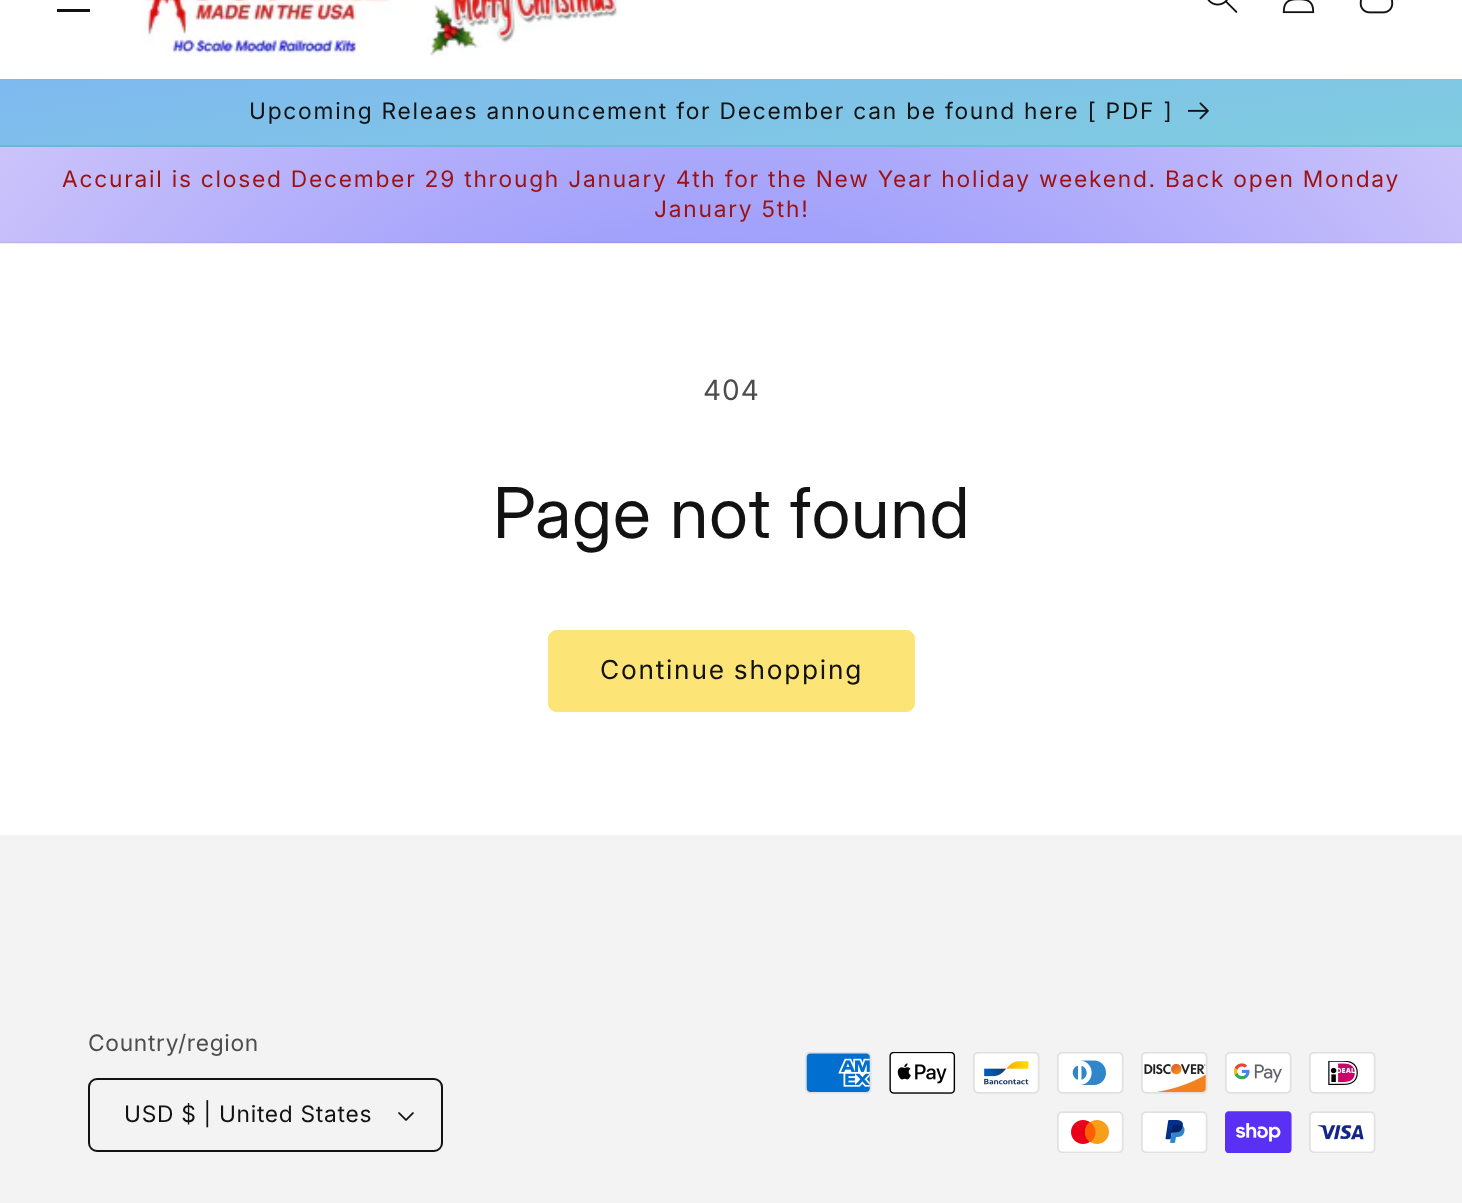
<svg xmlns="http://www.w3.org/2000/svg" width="1462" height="1203">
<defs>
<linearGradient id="g1" gradientUnits="userSpaceOnUse" x1="815" y1="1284" x2="648" y2="-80"><stop offset="0" stop-color="#7eb3f5"/><stop offset="0.4" stop-color="#84f5bc"/><stop offset="1" stop-color="#7eb3f5"/></linearGradient>
<linearGradient id="g2" gradientUnits="userSpaceOnUse" x1="815" y1="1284" x2="648" y2="-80"><stop offset="0" stop-color="#75a6e3"/><stop offset="0.4" stop-color="#7be3ae"/><stop offset="1" stop-color="#75a6e3"/></linearGradient>
<radialGradient id="g3" gradientUnits="userSpaceOnUse" cx="0" cy="0" r="1" gradientTransform="matrix(1034 0 0 851 732 602)"><stop offset="0" stop-color="#7980fc"/><stop offset="1" stop-color="#d7ccfa"/><stop offset="1" stop-color="#f7c5cc"/></radialGradient>
<radialGradient id="g4" gradientUnits="userSpaceOnUse" cx="0" cy="0" r="1" gradientTransform="matrix(1034 0 0 851 732 602)"><stop offset="0" stop-color="#7c77e9"/><stop offset="1" stop-color="#d3bde7"/><stop offset="1" stop-color="#f0b7bd"/></radialGradient>
</defs>
<rect width="100%" height="100%" fill="#fff"/>
<rect y="243" width="1462" height="1" fill="#f7ecec"/>
<rect x="57" y="9" width="33" height="3" fill="#121212"/>
<image x="142" y="0" width="476" height="57" href="media/1.png"/>
<image x="1207" y="0" width="31" height="13" href="media/2.png"/>
<image x="1282" y="0" width="33" height="14" href="media/3.png"/>
<image x="1359" y="0" width="35" height="14" href="media/4.png"/>
<rect y="79" width="1462" height="66" fill="url(#g1)"/>
<rect y="145" width="1462" height="2" fill="url(#g2)"/>
<text x="249" y="119" style="font-family:Inter;font-size:22.75px;letter-spacing:1.75px;fill:#121212">Upcoming Releaes announcement for December can be found here [ PDF ]</text>
<image x="1188" y="102" width="21" height="18" href="media/5.png"/>
<rect y="147" width="1462" height="95" fill="url(#g3)"/>
<rect y="242" width="1462" height="1" fill="url(#g4)"/>
<text x="62" y="187" style="font-family:Inter;font-size:22.75px;letter-spacing:1.75px;fill:#9f1111">Accurail is closed December 29 through January 4th for the New Year holiday weekend. Back open Monday</text>
<text x="654" y="217" style="font-family:Inter;font-size:22.75px;letter-spacing:1.75px;fill:#9f1111">January 5th!</text>
<text x="703" y="400" style="font-family:Inter;font-size:28px;letter-spacing:1px;fill:#4d4d4d">404</text>
<text x="493" y="538" style="font-family:'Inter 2';font-size:70px;letter-spacing:1px;fill:#121212">Page not found</text>
<rect x="548" y="630" width="367" height="82" rx="9" fill="#fce477"/>
<rect x="549" y="631" width="365" height="80" rx="8" fill="none" stroke="#fce477" stroke-width="2"/>
<text x="600" y="679" word-spacing="-1" style="font-family:Inter;font-size:26.25px;letter-spacing:1.75px;fill:#121212">Continue shopping</text>
<rect y="835" width="1462" height="368" fill="#f3f3f3"/>
<text x="88" y="1051" style="font-family:Inter;font-size:22.75px;letter-spacing:0.7px;fill:#4d4d4d">Country/region</text>
<image x="398" y="1112" width="16" height="9" href="media/6.png"/>
<rect x="89" y="1079" width="353" height="72" rx="8" fill="none" stroke="#121212" stroke-width="2"/>
<text x="124" y="1122" style="font-family:Inter;font-size:22.75px;letter-spacing:0.7px;fill:#121212">USD $ | United States</text>
<image x="805" y="1052" width="67" height="42" href="media/7.png"/>
<image x="889" y="1052" width="67" height="42" href="media/8.png"/>
<image x="973" y="1052" width="67" height="42" href="media/9.png"/>
<image x="1057" y="1052" width="67" height="42" href="media/10.png"/>
<image x="1141" y="1052" width="67" height="42" href="media/11.png"/>
<image x="1225" y="1052" width="67" height="42" href="media/12.png"/>
<image x="1309" y="1052" width="67" height="42" href="media/13.png"/>
<image x="1057" y="1111" width="67" height="42" href="media/14.png"/>
<image x="1141" y="1111" width="67" height="42" href="media/15.png"/>
<image x="1225" y="1111" width="67" height="42" href="media/16.png"/>
<image x="1309" y="1111" width="67" height="42" href="media/17.png"/>
</svg>
